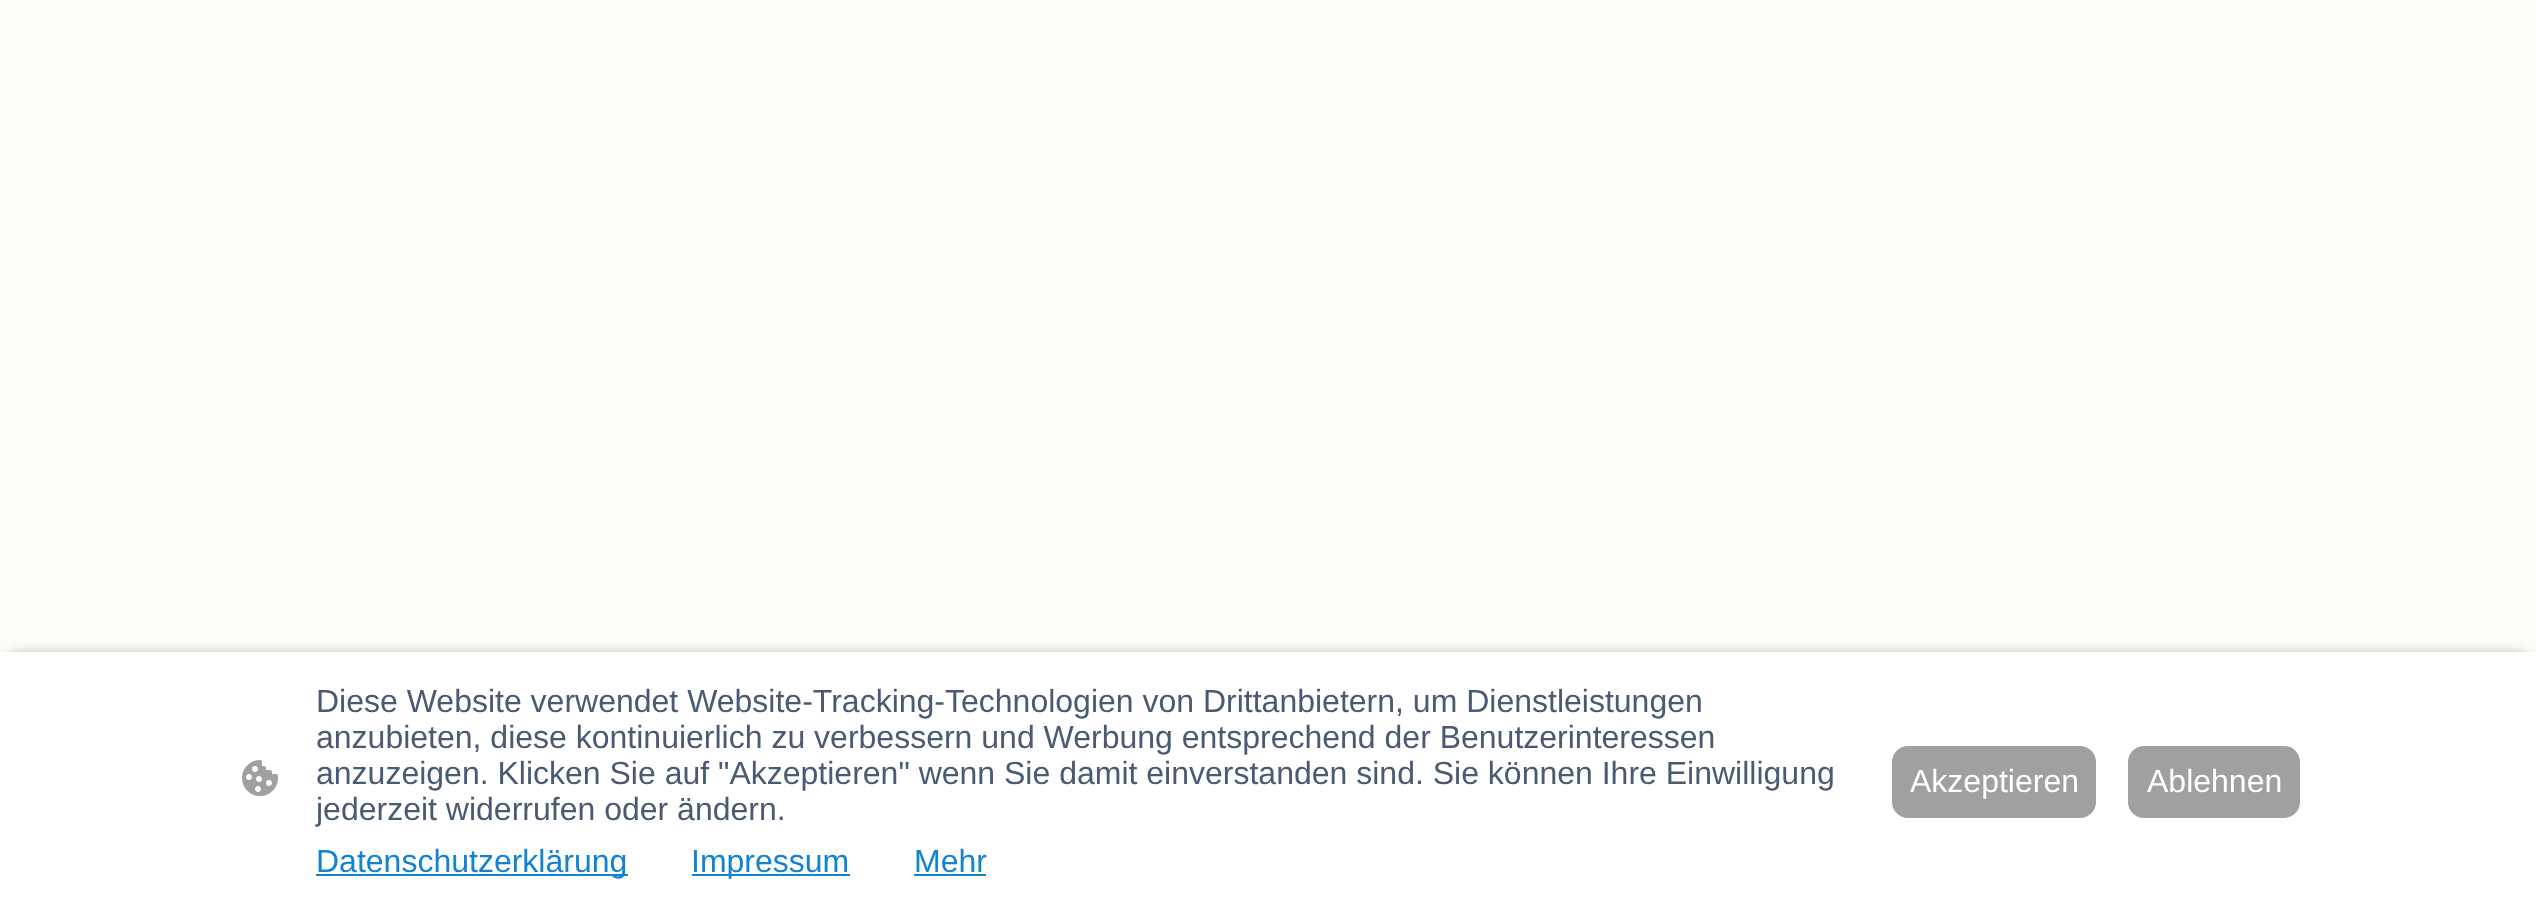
<svg xmlns="http://www.w3.org/2000/svg" width="2536" height="912">
<rect width="100%" height="100%" fill="#fffdf9"/>
<rect x="12" y="658" width="2512" height="236" fill="#000000a1" filter="blur(8px)"/>
<rect y="652" width="2536" height="260" fill="#fff"/>
<image x="242" y="760" width="36" height="36" href="media/1.png"/>
<text x="316" y="712" style="font-family:Liberation Sans;font-size:32px;fill:#4a5a73">Diese Website verwendet Website-Tracking-Technologien von Drittanbietern, um Dienstleistungen</text>
<text x="316" y="748" style="font-family:Liberation Sans;font-size:32px;fill:#4a5a73">anzubieten, diese kontinuierlich zu verbessern und Werbung entsprechend der Benutzerinteressen</text>
<text x="316" y="784" style="font-family:Liberation Sans;font-size:32px;fill:#4a5a73">anzuzeigen. Klicken Sie auf "Akzeptieren" wenn Sie damit einverstanden sind. Sie können Ihre Einwilligung</text>
<text x="316" y="820" style="font-family:Liberation Sans;font-size:32px;fill:#4a5a73">jederzeit widerrufen oder ändern.</text>
<rect x="316" y="874" width="312" height="2" fill="#1183d1"/>
<text x="316" y="872" style="font-family:Liberation Sans;font-size:32px;fill:#1183d1">Datenschutzerklärung</text>
<rect x="692" y="874" width="158" height="2" fill="#1183d1"/>
<text x="691" y="872" style="font-family:Liberation Sans;font-size:32px;fill:#1183d1">Impressum</text>
<text x="914" y="872" style="font-family:Liberation Sans;font-size:32px;fill:#1183d1">Mehr</text>
<rect x="914" y="874" width="72" height="2" fill="#1183d1"/>
<rect x="1893" y="747" width="202" height="70" rx="15" fill="#a0a0a0" stroke="#a0a0a0" stroke-width="2"/>
<text x="1910" y="792" style="font-family:Liberation Sans;font-size:32px;fill:#fff">Akzeptieren</text>
<rect x="2129" y="747" width="170" height="70" rx="15" fill="#a0a0a0" stroke="#a0a0a0" stroke-width="2"/>
<text x="2147" y="792" style="font-family:Liberation Sans;font-size:32px;fill:#fff">Ablehnen</text>
</svg>
